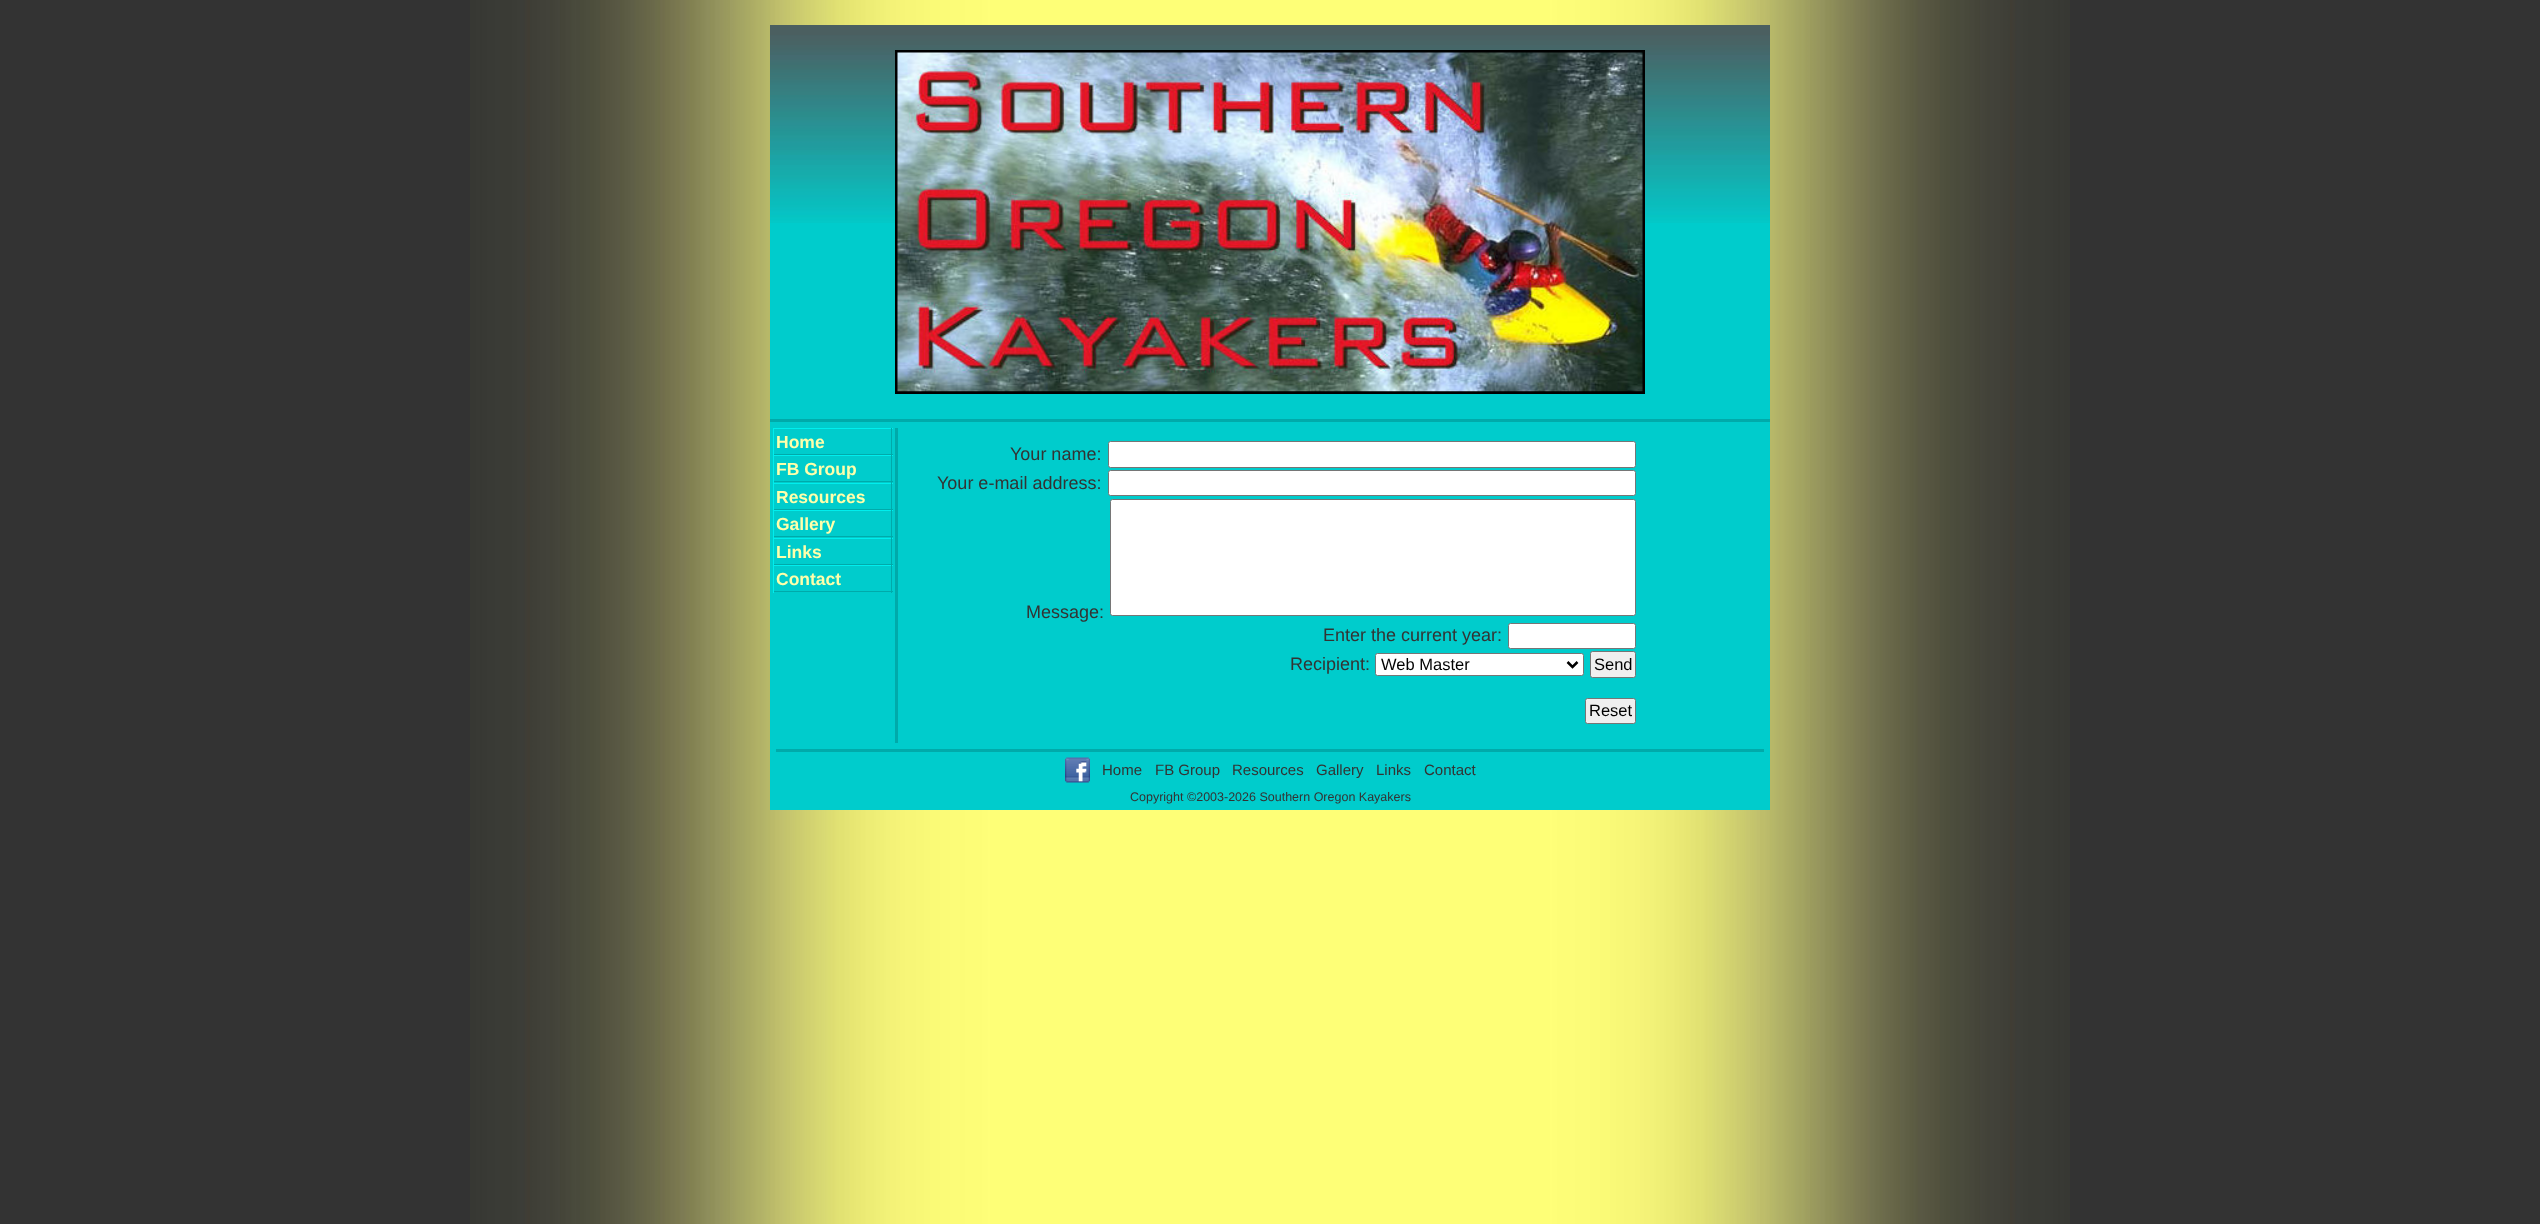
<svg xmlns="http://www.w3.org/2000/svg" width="2540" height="1224">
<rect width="100%" height="100%" fill="#333"/>
<image x="470" y="0" width="1600" height="1224" href="media/1.png"/>
<rect x="770" y="223" width="1000" height="587" fill="#0cc"/>
<image x="770" y="25" width="1000" height="198" href="media/2.png"/>
<rect x="770" y="419" width="1000" height="3" fill="#0aa"/>
<rect x="896.5" y="51.5" width="747" height="341" fill="none" stroke="#000" stroke-width="3"/>
<image x="897" y="52" width="746" height="340" href="media/3.png"/>
<rect x="773" y="428" width="120" height="1" fill="#0ee"/>
<rect x="891" y="428" width="1" height="27" fill="#0aa"/>
<rect x="773" y="454" width="120" height="1" fill="#0aa"/>
<rect x="773" y="428" width="1" height="27" fill="#0ee"/>
<text x="776" y="448" style="font-family:Liberation Sans;font-size:17.5px;font-weight:bold;fill:#ffa">Home</text>
<rect x="773" y="455" width="120" height="1" fill="#0ee"/>
<rect x="891" y="455" width="1" height="28" fill="#0aa"/>
<rect x="773" y="481" width="120" height="1" fill="#0aa"/>
<rect x="773" y="455" width="1" height="28" fill="#0ee"/>
<text x="776" y="475" style="font-family:Liberation Sans;font-size:17.5px;font-weight:bold;fill:#ffa">FB Group</text>
<rect x="773" y="483" width="120" height="1" fill="#0ee"/>
<rect x="891" y="483" width="1" height="27" fill="#0aa"/>
<rect x="773" y="509" width="120" height="1" fill="#0aa"/>
<rect x="773" y="483" width="1" height="27" fill="#0ee"/>
<text x="776" y="503" style="font-family:Liberation Sans;font-size:17.5px;font-weight:bold;fill:#ffa">Resources</text>
<rect x="773" y="510" width="120" height="1" fill="#0ee"/>
<rect x="891" y="510" width="1" height="28" fill="#0aa"/>
<rect x="773" y="536" width="120" height="1" fill="#0aa"/>
<rect x="773" y="510" width="1" height="28" fill="#0ee"/>
<text x="776" y="530" style="font-family:Liberation Sans;font-size:17.5px;font-weight:bold;fill:#ffa">Gallery</text>
<rect x="773" y="538" width="120" height="1" fill="#0ee"/>
<rect x="891" y="538" width="1" height="27" fill="#0aa"/>
<rect x="773" y="564" width="120" height="1" fill="#0aa"/>
<rect x="773" y="538" width="1" height="27" fill="#0ee"/>
<text x="776" y="558" style="font-family:Liberation Sans;font-size:17.5px;font-weight:bold;fill:#ffa">Links</text>
<rect x="773" y="565" width="120" height="1" fill="#0ee"/>
<rect x="891" y="565" width="1" height="28" fill="#0aa"/>
<rect x="773" y="591" width="120" height="1" fill="#0aa"/>
<rect x="773" y="565" width="1" height="28" fill="#0ee"/>
<text x="776" y="585" style="font-family:Liberation Sans;font-size:17.5px;font-weight:bold;fill:#ffa">Contact</text>
<rect x="895" y="428" width="3" height="315" fill="#0aa"/>
<text x="1010" y="460" style="font-family:Liberation Sans;font-size:18px;fill:#333">Your name:</text>
<rect x="1108.5" y="441.5" width="527" height="26" rx="2" fill="#fff" stroke="#767676"/>
<text x="937" y="489" style="font-family:Liberation Sans;font-size:18px;fill:#333">Your e-mail address:</text>
<rect x="1108.5" y="470.5" width="527" height="25" rx="2" fill="#fff" stroke="#767676"/>
<text x="1026" y="618" style="font-family:Liberation Sans;font-size:18px;fill:#333">Message:</text>
<rect x="1110.5" y="499.5" width="525" height="116" rx="2" fill="#fff" stroke="#767676"/>
<text x="1323" y="641" style="font-family:Liberation Sans;font-size:18px;fill:#333">Enter the current year:</text>
<rect x="1508.5" y="623.5" width="127" height="25" rx="2" fill="#fff" stroke="#767676"/>
<text x="1290" y="670" style="font-family:Liberation Sans;font-size:18px;fill:#333">Recipient:</text>
<rect x="1375.5" y="653.5" width="208" height="22" rx="2" fill="#fff" stroke="#767676"/>
<path d="M1567.5 662l5 5l5-5" fill="none" stroke="#000" stroke-width="2.5"/>
<text x="1381" y="670" style="font-family:Liberation Sans;font-size:16.5px;fill:#000">Web Master</text>
<rect x="1590.5" y="651.5" width="45" height="26" rx="2" fill="#efefef" stroke="#767676"/>
<text x="1594" y="670" style="font-family:Liberation Sans;font-size:16.5px;fill:#000">Send</text>
<rect x="1585.5" y="698.5" width="50" height="25" rx="2" fill="#efefef" stroke="#767676"/>
<text x="1589" y="716" style="font-family:Liberation Sans;font-size:16.5px;fill:#000">Reset</text>
<rect x="776" y="749" width="988" height="3" fill="#0aa"/>
<image x="1065" y="757" width="25" height="26" href="media/4.png"/>
<text x="1102" y="775" style="font-family:Liberation Sans;font-size:15px;fill:#333">Home</text>
<text x="1155" y="775" style="font-family:Liberation Sans;font-size:15px;fill:#333">FB Group</text>
<text x="1232" y="775" style="font-family:Liberation Sans;font-size:15px;fill:#333">Resources</text>
<text x="1316" y="775" style="font-family:Liberation Sans;font-size:15px;fill:#333">Gallery</text>
<text x="1376" y="775" style="font-family:Liberation Sans;font-size:15px;fill:#333">Links</text>
<text x="1424" y="775" style="font-family:Liberation Sans;font-size:15px;fill:#333">Contact</text>
<text x="1130" y="801" style="font-family:Liberation Sans;font-size:12.5px;fill:#333">Copyright ©2003-2026 Southern Oregon Kayakers</text>
</svg>
